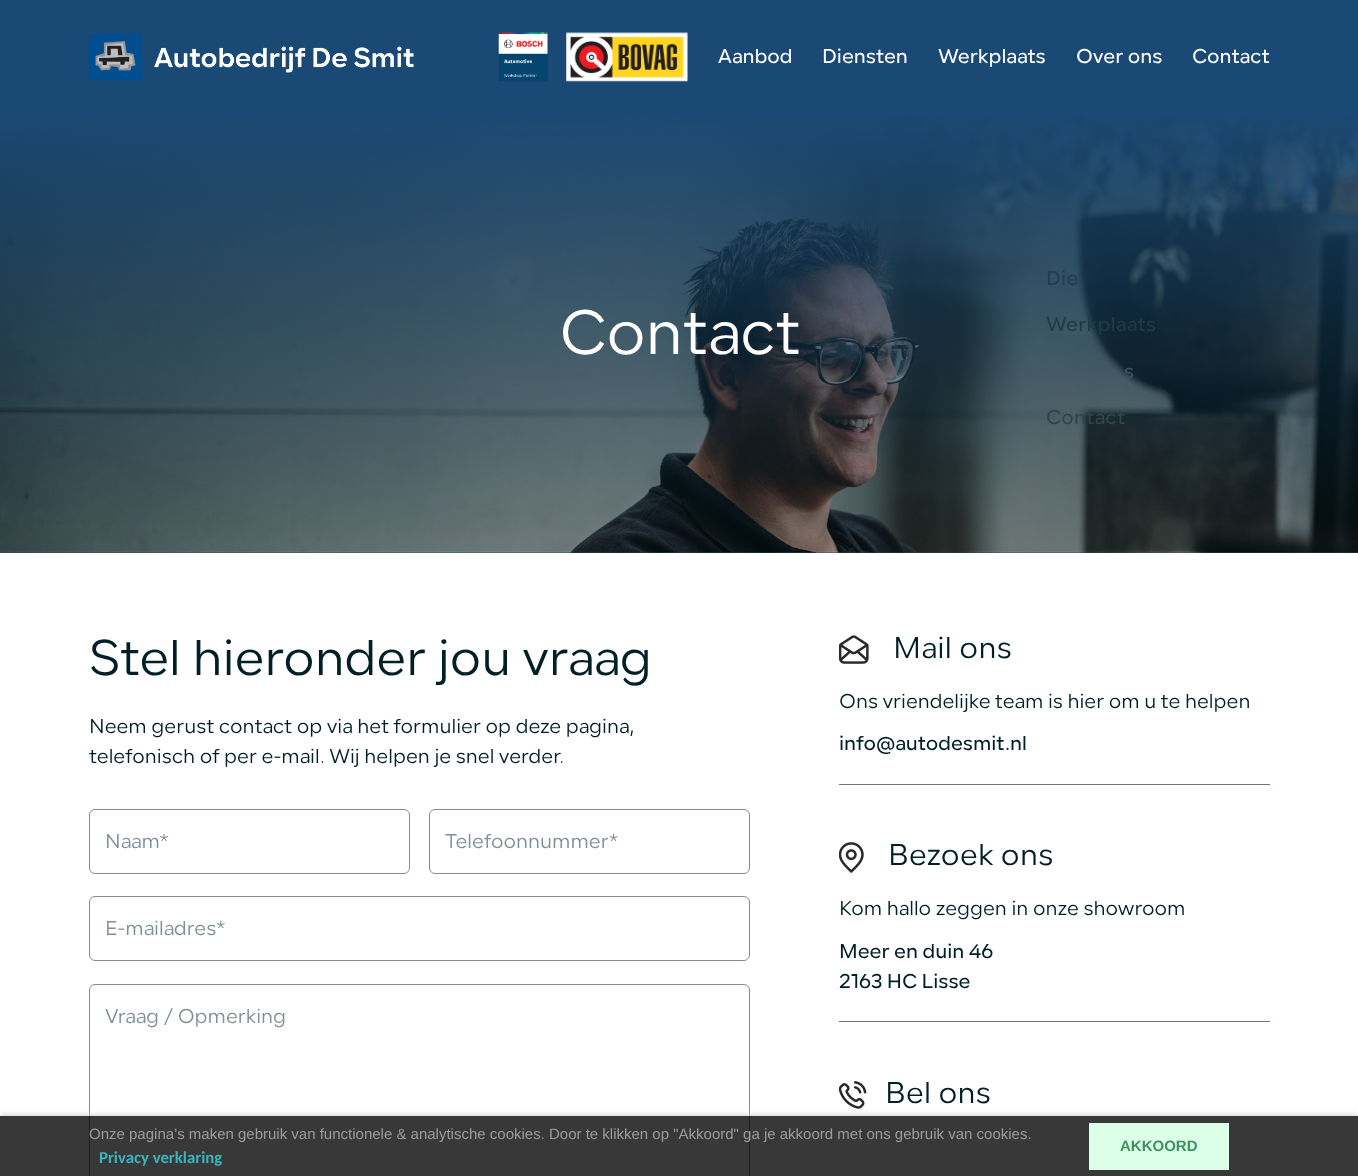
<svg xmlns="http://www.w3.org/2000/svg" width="1358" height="1176">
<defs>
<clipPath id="clip1"><path d="M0 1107h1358v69h-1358zm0 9h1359v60h-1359z" clip-rule="evenodd"/></clipPath>
</defs>
<rect width="100%" height="100%" fill="#1b4975"/>
<image x="88" y="33" width="326" height="47" href="media/1.png"/>
<image x="498" y="32" width="50" height="50" href="media/2.png"/>
<image x="566" y="32" width="122" height="50" href="media/3.png"/>
<text x="718" y="63" style="font-family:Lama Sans;font-size:20px;font-weight:500;fill:#fff">Aanbod</text>
<text x="822" y="63" style="font-family:Lama Sans;font-size:20px;font-weight:500;fill:#fff">Diensten</text>
<text x="938" y="63" style="font-family:Lama Sans;font-size:20px;font-weight:500;fill:#fff">Werkplaats</text>
<text x="1076" y="63" style="font-family:Lama Sans;font-size:20px;font-weight:500;fill:#fff">Over ons</text>
<text x="1192" y="63" style="font-family:Lama Sans;font-size:20px;font-weight:500;fill:#fff">Contact</text>
<image x="0" y="115" width="1358" height="438" href="media/4.png"/>
<image x="0" y="115" width="1358" height="438" href="media/5.png"/>
<text x="1046" y="285" style="font-family:Lama Sans;font-size:20px;font-weight:500;letter-spacing:0.25px;fill:#203d51">Die</text>
<text x="1046" y="331" style="font-family:Lama Sans;font-size:20px;font-weight:500;letter-spacing:0.25px;fill:#213a4a">Werkplaats</text>
<text x="1124" y="378" style="font-family:Lama Sans;font-size:20px;font-weight:500;letter-spacing:0.25px;fill:#3d545e">s</text>
<text x="1046" y="424" style="font-family:Lama Sans;font-size:20px;font-weight:500;letter-spacing:0.25px;fill:#32444b">Contact</text>
<text x="559" y="354" style="font-family:Lama Sans;font-size:62.5px;fill:#fff">Contact</text>
<rect y="553" width="1358" height="623" fill="#fff"/>
<text x="89" y="675" style="font-family:Lama Sans;font-size:50px;fill:#011f27">Stel hieronder jou vraag</text>
<text x="89" y="733" style="font-family:Lama Sans;font-size:20px;fill:#011f27">Neem gerust contact op via het formulier op deze pagina,</text>
<text x="89" y="763" style="font-family:Lama Sans;font-size:20px;fill:#011f27">telefonisch of per e-mail. Wij helpen je snel verder.</text>
<rect x="89.5" y="809.5" width="320" height="64" rx="5.5" fill="none" stroke="#808f93"/>
<text x="105" y="848" style="font-family:Lama Sans;font-size:20px;fill:#808f93">Naam*</text>
<rect x="429.5" y="809.5" width="320" height="64" rx="5.5" fill="none" stroke="#808f93"/>
<text x="445" y="848" style="font-family:Lama Sans;font-size:20px;fill:#808f93">Telefoonnummer*</text>
<rect x="89.5" y="896.5" width="660" height="64" rx="5.5" fill="none" stroke="#808f93"/>
<text x="105" y="935" style="font-family:Lama Sans;font-size:20px;fill:#808f93">E-mailadres*</text>
<rect x="89.5" y="984.5" width="660" height="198" rx="5.5" fill="none" stroke="#808f93"/>
<text x="105" y="1023" style="font-family:Lama Sans;font-size:20px;fill:#808f93">Vraag / Opmerking</text>
<rect x="839" y="784" width="431" height="1" fill="#67797d"/>
<image x="839" y="635" width="30" height="29" href="media/6.png"/>
<text x="893" y="658" style="font-family:Lama Sans;font-size:30px;letter-spacing:0.25px;fill:#011f27">Mail ons</text>
<text x="839" y="708" style="font-family:Lama Sans;font-size:20px;fill:#011f27">Ons vriendelijke team is hier om u te helpen</text>
<text x="839" y="750" style="font-family:Lama Sans;font-size:20px;font-weight:500;fill:#011f27">info@autodesmit.nl</text>
<rect x="839" y="1021" width="431" height="1" fill="#67797d"/>
<image x="839" y="842" width="25" height="31" href="media/7.png"/>
<text x="888" y="865" style="font-family:Lama Sans;font-size:30px;letter-spacing:0.25px;fill:#011f27">Bezoek ons</text>
<text x="839" y="915" style="font-family:Lama Sans;font-size:20px;fill:#011f27">Kom hallo zeggen in onze showroom</text>
<text x="839" y="958" style="font-family:Lama Sans;font-size:20px;font-weight:500;fill:#011f27">Meer en duin 46</text>
<text x="839" y="988" style="font-family:Lama Sans;font-size:20px;font-weight:500;fill:#011f27">2163 HC Lisse</text>
<image x="839" y="1081" width="28" height="28" href="media/8.png"/>
<text x="885" y="1103" style="font-family:Lama Sans;font-size:30px;letter-spacing:0.25px;fill:#011f27">Bel ons</text>
<g clip-path="url(#clip1)">
<rect x="1" y="1114" width="1357" height="57" fill="#cbcbcba6" filter="blur(2px)"/>
</g>
<rect y="1116" width="1358" height="60" fill="#000000c7"/>
<text x="89" y="1139" style="font-family:Liberation Sans;font-size:15px;fill:#9c9c9c">Onze pagina’s maken gebruik van functionele &amp; analytische cookies. Door te klikken op "Akkoord" ga je akkoord met ons gebruik van cookies.</text>
<text x="99" y="1163" style="font-family:Carlito;font-size:16.75px;font-weight:bold;fill:#38b6be">Privacy verklaring</text>
<rect x="1089" y="1123" width="140" height="47" fill="#dbffe8"/>
<text x="1120" y="1151" style="font-family:Liberation Sans;font-size:15px;font-weight:bold;fill:#3c935c">AKKOORD</text>
</svg>
